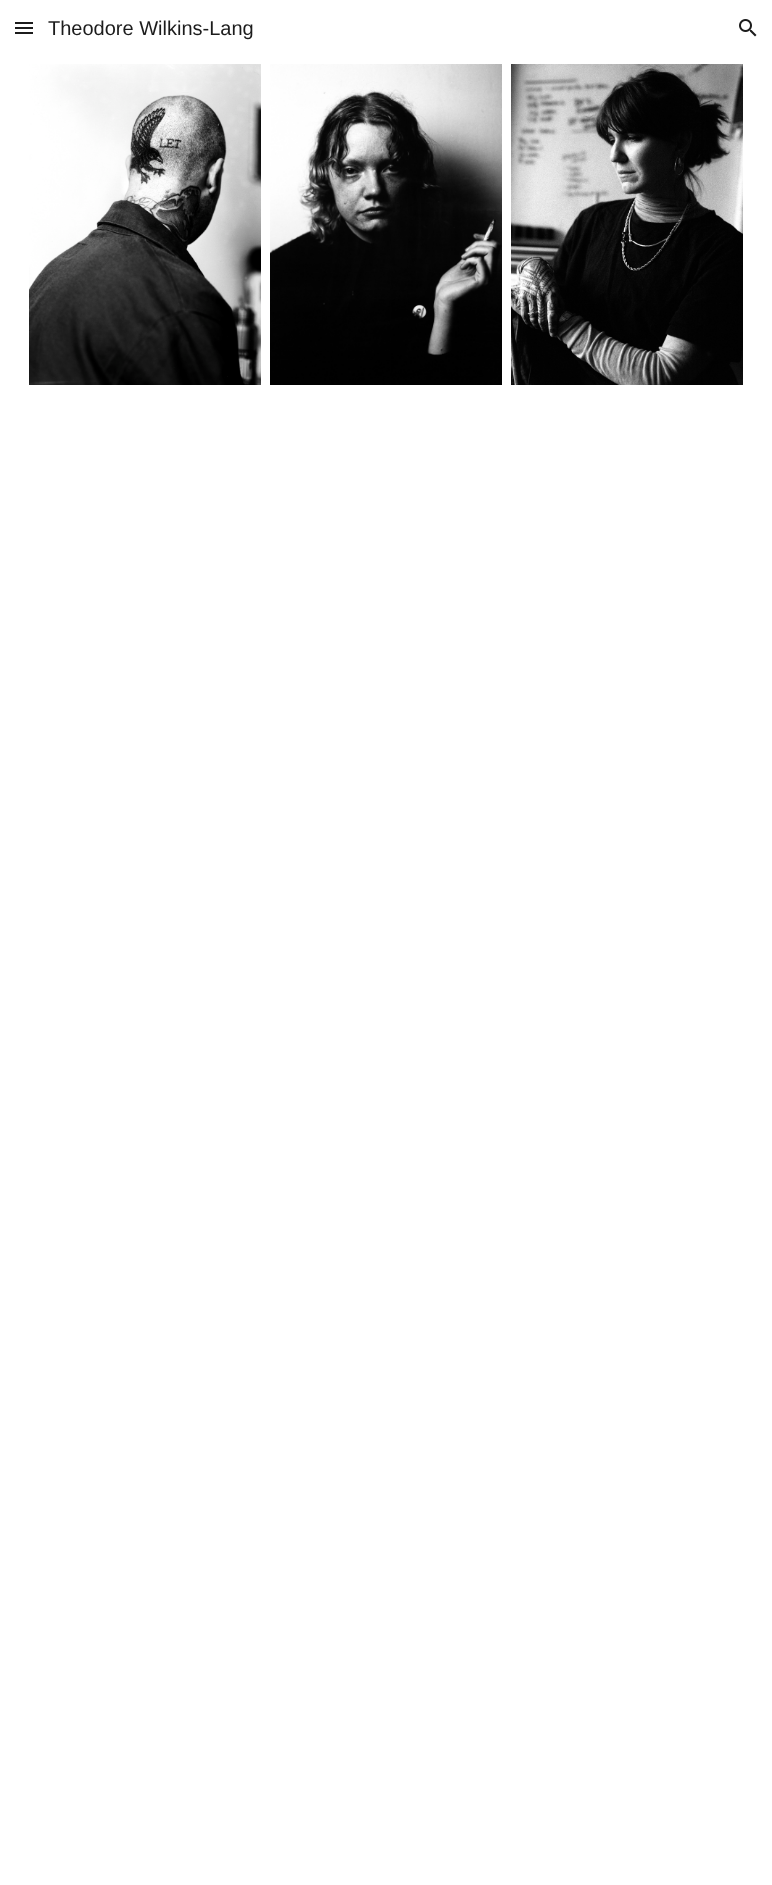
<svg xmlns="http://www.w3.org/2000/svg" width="772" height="1885">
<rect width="100%" height="100%" fill="#fff"/>
<rect x="15" y="22" width="18" height="2" fill="#1c1c1c"/>
<rect x="15" y="27" width="18" height="2" fill="#1c1c1c"/>
<rect x="15" y="32" width="18" height="2" fill="#1c1c1c"/>
<text x="48" y="35" style="font-family:Liberation Sans;font-size:20px;fill:#1c1c1c">Theodore Wilkins-Lang</text>
<image x="739" y="19" width="18" height="18" href="media/1.png"/>
<image x="29" y="64" width="232" height="321" href="media/2.png"/>
<image x="270" y="64" width="232" height="321" href="media/3.png"/>
<image x="511" y="64" width="232" height="321" href="media/4.png"/>
</svg>
